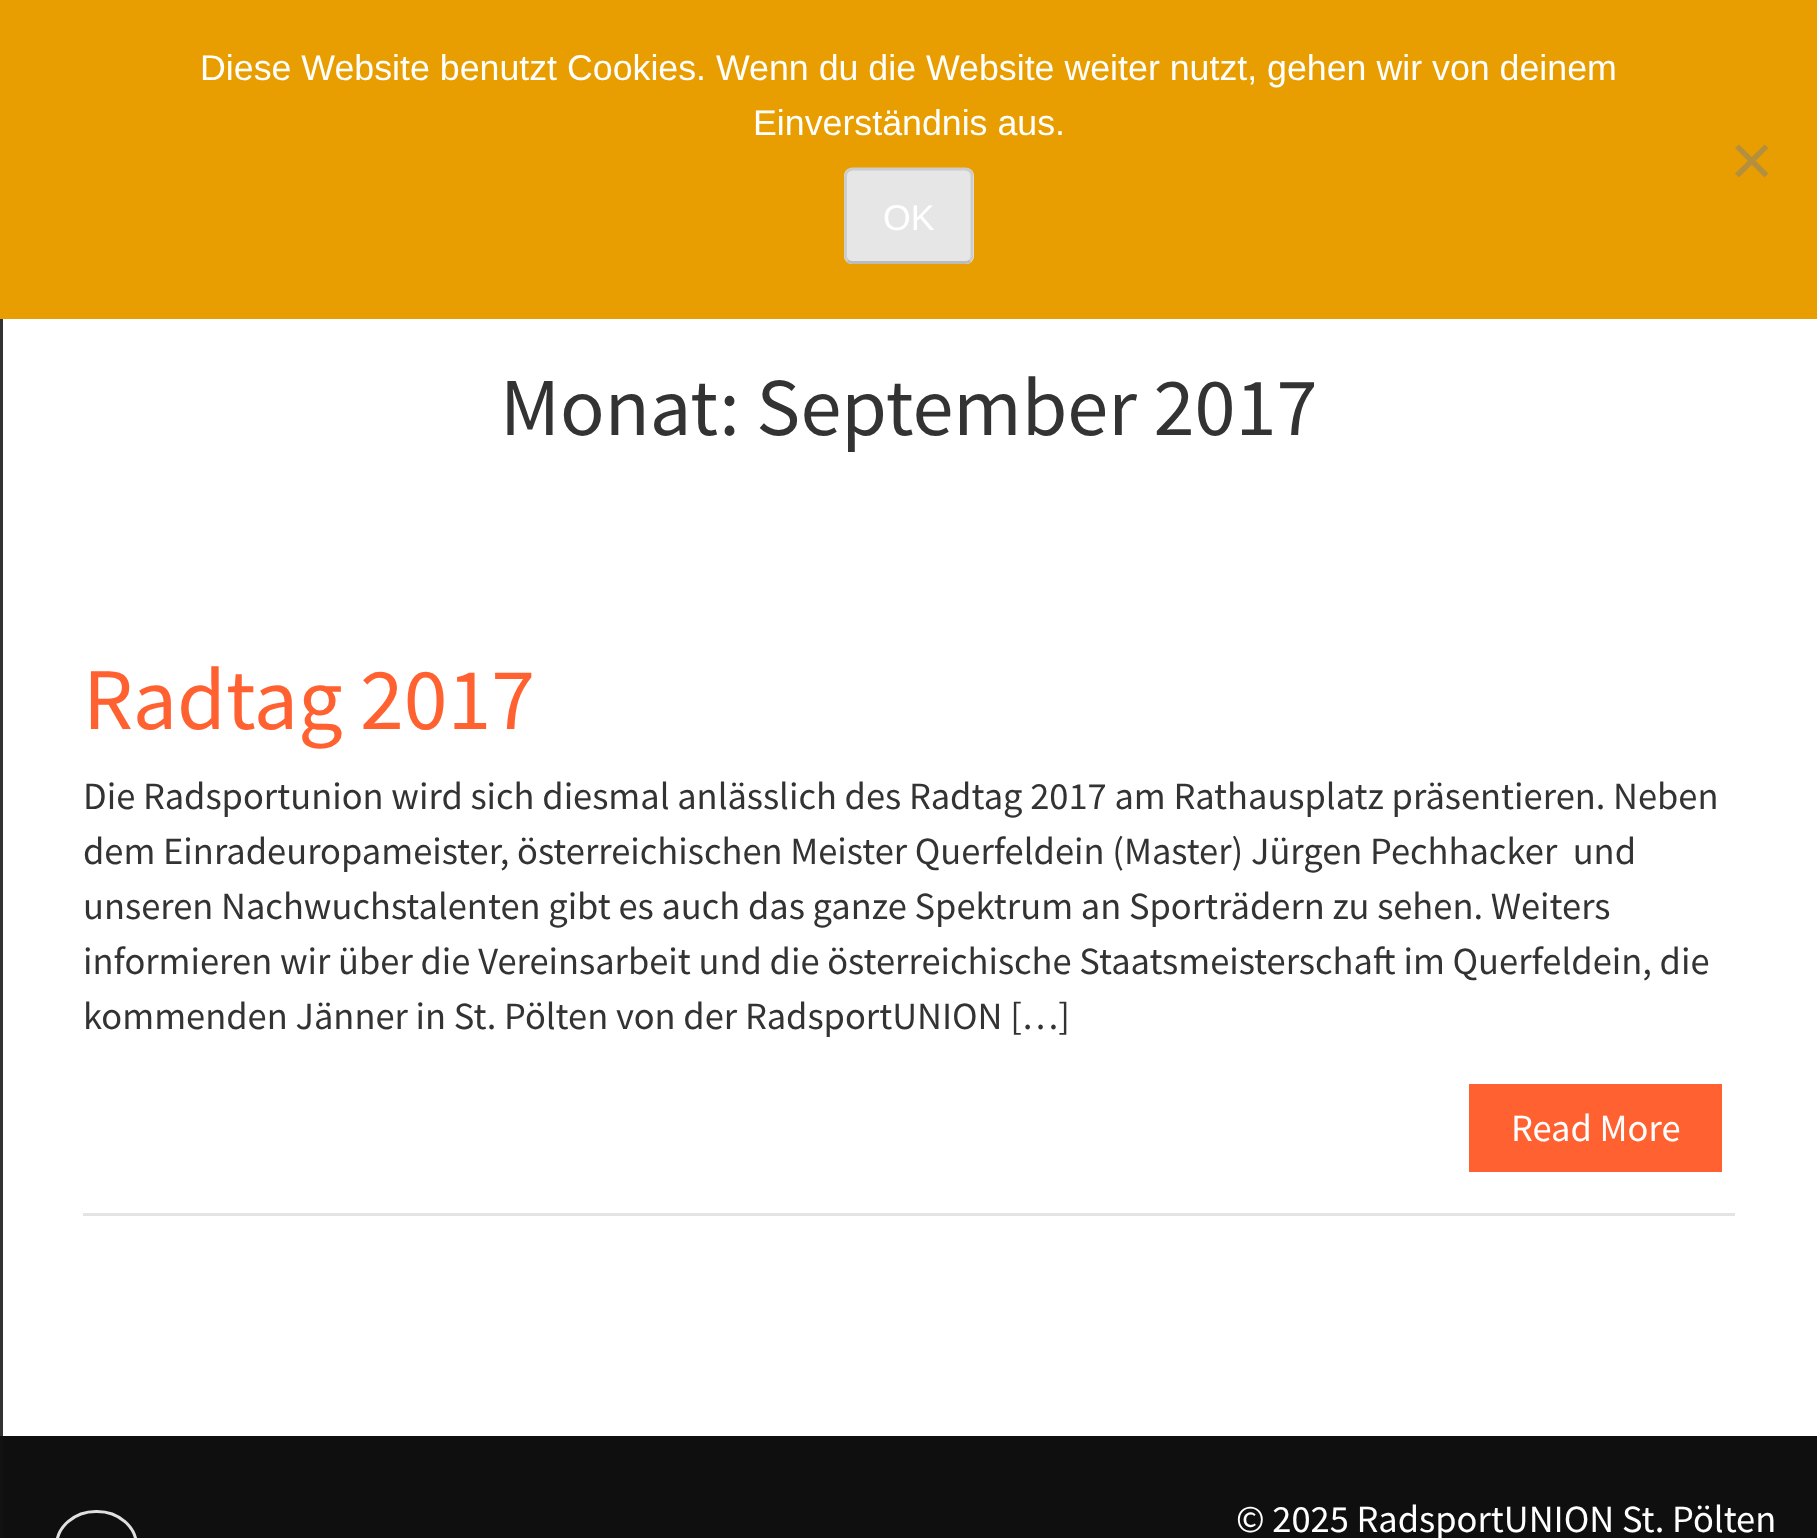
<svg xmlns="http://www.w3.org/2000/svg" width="1817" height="1538">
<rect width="100%" height="100%" fill="#fff"/>
<rect y="319" width="3" height="1117" fill="#323232"/>
<rect width="1817" height="319" fill="#e89e00"/>
<text x="200" y="80" style="font-family:Liberation Sans;font-size:35.75px;fill:#fff">Diese Website benutzt Cookies. Wenn du die Website weiter nutzt, gehen wir von deinem</text>
<text x="753" y="135" style="font-family:Liberation Sans;font-size:35.75px;fill:#fff">Einverständnis aus.</text>
<path d="M1764.5 144.5l4 3.5l-29.5 29.5l-4-4z" fill="#b48f40"/>
<path d="M1735 148l4-3.5l29.5 29l-4 4z" fill="#b48f40"/>
<rect x="844" y="168" width="130" height="96" rx="8" fill="#e6e6e6"/>
<path d="M970 260.5c-1 1.5-3 2-5 2h-112.5c-2 0-3.5-.5-5-2" fill="none" stroke="#bbb" stroke-width="2.8"/>
<path d="M847.5 260.5c-1-1-2-3-2-4.5v-80c0-2 1-3.5 2-5c1.5-1 3-2 5-2h112.5c2 0 4 1 5 2c1.5 1.5 2 3 2 5v80c0 1.5-.5 3.5-2 4.5" fill="none" stroke="#ccc" stroke-width="2.8"/>
<text x="883" y="230" style="font-family:Liberation Sans;font-size:35.75px;fill:#fff">OK</text>
<text x="500" y="435" style="font-family:Source Sans Pro;font-size:82.5px;fill:#333">Monat: September 2017</text>
<rect x="83" y="1213" width="1652" height="3" fill="#e4e4e4"/>
<text x="83" y="729" style="font-family:Source Sans Pro;font-size:88px;fill:#ff6131">Radtag 2017</text>
<text x="83" y="809" style="font-family:Source Sans Pro;font-size:38.5px;fill:#333">Die Radsportunion wird sich diesmal anlässlich des Radtag 2017 am Rathausplatz präsentieren. Neben</text>
<text x="83" y="864" style="font-family:Source Sans Pro;font-size:38.5px;fill:#333" xml:space="preserve">dem Einradeuropameister, österreichischen Meister Querfeldein (Master) Jürgen Pechhacker  und</text>
<text x="83" y="919" style="font-family:Source Sans Pro;font-size:38.5px;fill:#333">unseren Nachwuchstalenten gibt es auch das ganze Spektrum an Sporträdern zu sehen. Weiters</text>
<text x="83" y="974" style="font-family:Source Sans Pro;font-size:38.5px;fill:#333">informieren wir über die Vereinsarbeit und die österreichische Staatsmeisterschaft im Querfeldein, die</text>
<text x="83" y="1029" style="font-family:Source Sans Pro;font-size:38.5px;fill:#333">kommenden Jänner in St. Pölten von der RadsportUNION […]</text>
<rect x="1469" y="1084" width="253" height="88" fill="#ff6131"/>
<text x="1511" y="1141" style="font-family:Source Sans Pro;font-size:38.5px;fill:#fff">Read More</text>
<rect x="3" y="1436" width="1814" height="102" fill="#0f0f0f"/>
<rect y="1436" width="3" height="102" fill="#121212"/>
<rect x="56.5" y="1511.5" width="80" height="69" rx="39.5" fill="none" stroke="#e0e0e0" stroke-width="3"/>
<text x="1236" y="1532" style="font-family:Source Sans Pro;font-size:38.5px;fill:#fff">© 2025 RadsportUNION St. Pölten</text>
</svg>
